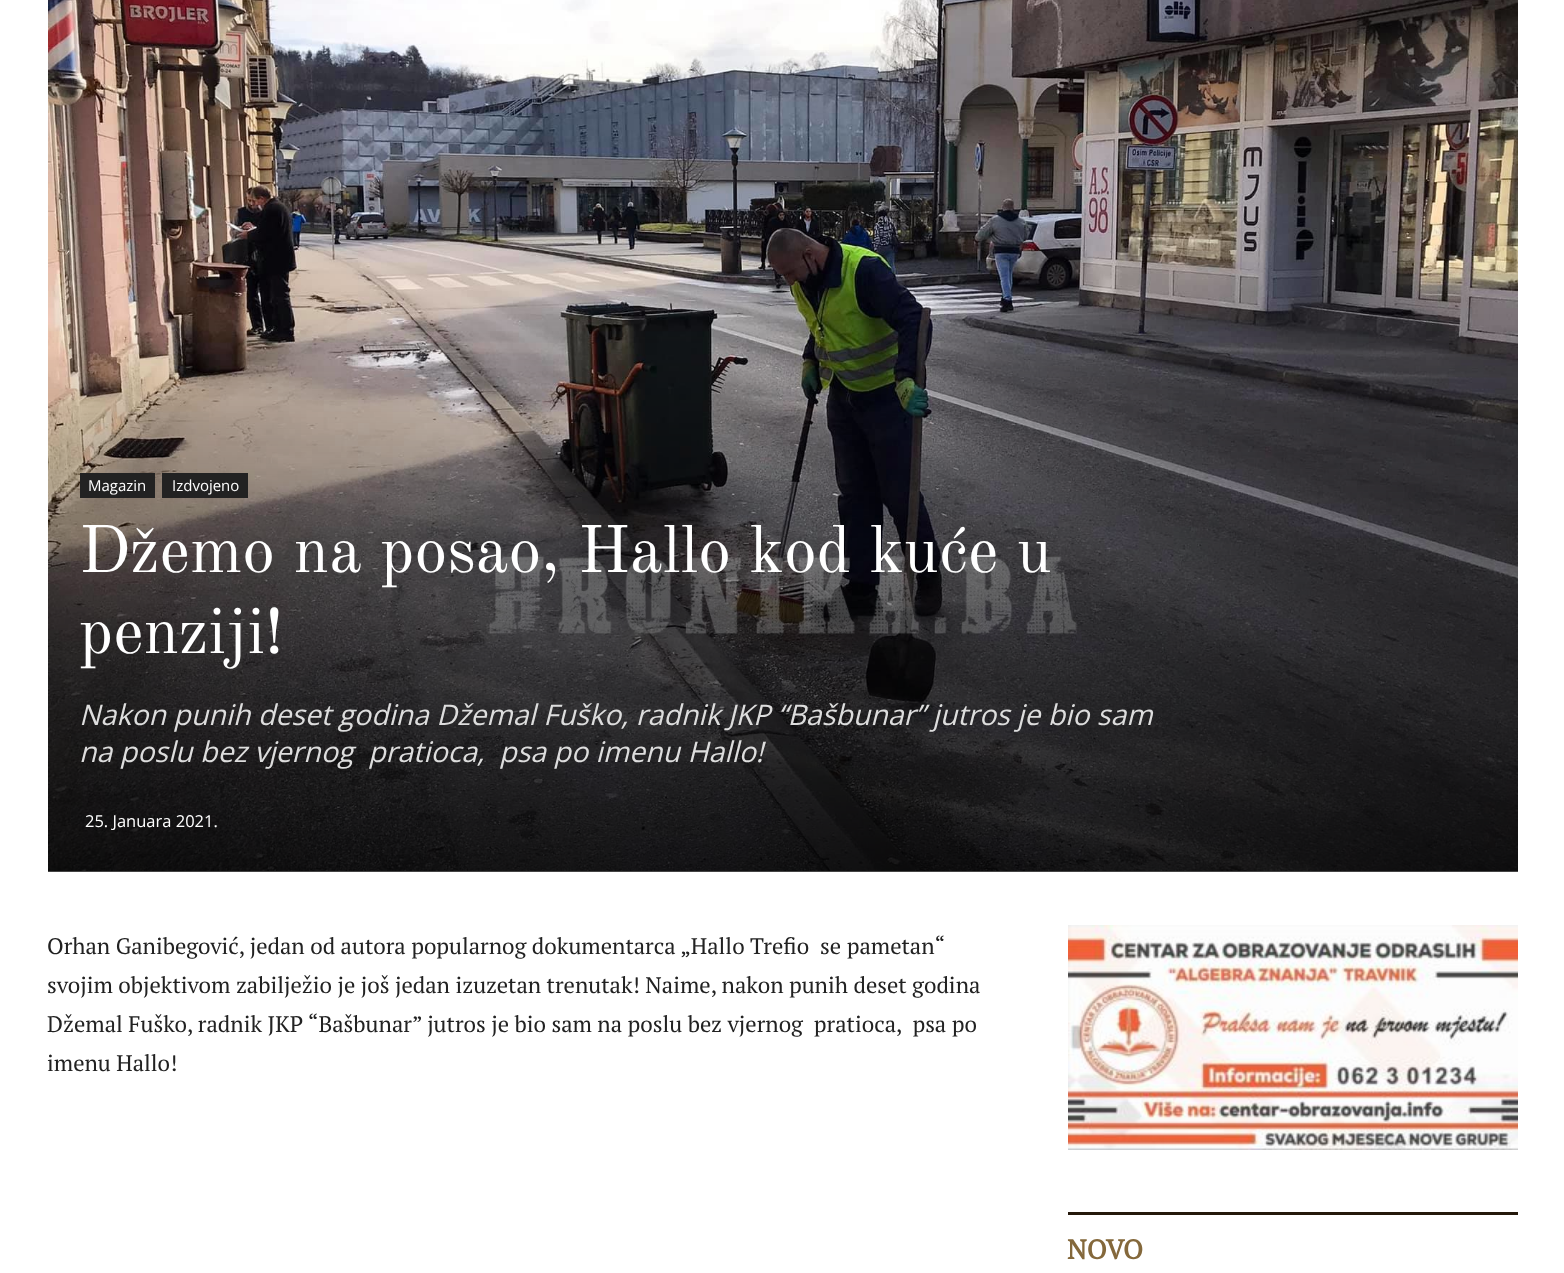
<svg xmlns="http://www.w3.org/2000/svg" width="1564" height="1273">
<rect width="100%" height="100%" fill="#fff"/>
<rect x="48" y="871" width="1470" height="1" fill="#444"/>
<image x="48" y="0" width="1470" height="871" href="media/1.png"/>
<rect x="80" y="473" width="75" height="25" fill="#222"/>
<text x="88" y="491" style="font-family:Open Sans;font-size:15px;fill:#fff">Magazin</text>
<rect x="162" y="473" width="86" height="25" fill="#222"/>
<text x="172" y="491" style="font-family:Open Sans;font-size:15px;fill:#fff">Izdvojeno</text>
<text x="79" y="572" style="font-family:Old Standard TT;font-size:66px;fill:#fff">Džemo na posao, Hallo kod kuće u</text>
<text x="79" y="653" style="font-family:Old Standard TT;font-size:66px;fill:#fff">penziji!</text>
<text x="79" y="725" style="font-family:Open Sans;font-size:28.5px;font-style:italic;fill:#ddd">Nakon punih deset godina Džemal Fuško, radnik JKP “Bašbunar” jutros je bio sam</text>
<text x="79" y="762" style="font-family:Open Sans;font-size:28.5px;font-style:italic;fill:#ddd" xml:space="preserve">na poslu bez vjernog  pratioca,  psa po imenu Hallo!</text>
<text x="85" y="827" style="font-family:Open Sans;font-size:16.5px;fill:#fff">25. Januara 2021.</text>
<text x="47" y="954" style="font-family:PT Serif;font-size:22.5px;fill:#222" xml:space="preserve">Orhan Ganibegović, jedan od autora popularnog dokumentarca „Hallo Trefio  se pametan“</text>
<text x="47" y="993" style="font-family:PT Serif;font-size:22.5px;fill:#222">svojim objektivom zabilježio je još jedan izuzetan trenutak! Naime, nakon punih deset godina</text>
<text x="47" y="1032" style="font-family:PT Serif;font-size:22.5px;fill:#222" xml:space="preserve">Džemal Fuško, radnik JKP “Bašbunar” jutros je bio sam na poslu bez vjernog  pratioca,  psa po</text>
<text x="47" y="1071" style="font-family:PT Serif;font-size:22.5px;fill:#222">imenu Hallo!</text>
<image x="1068" y="925" width="450" height="225" href="media/2.png"/>
<rect x="1068" y="1212" width="450" height="3" fill="#24180b"/>
<text x="1067" y="1259" style="font-family:PT Serif;font-size:27px;font-weight:bold;fill:#84683b">NOVO</text>
</svg>
